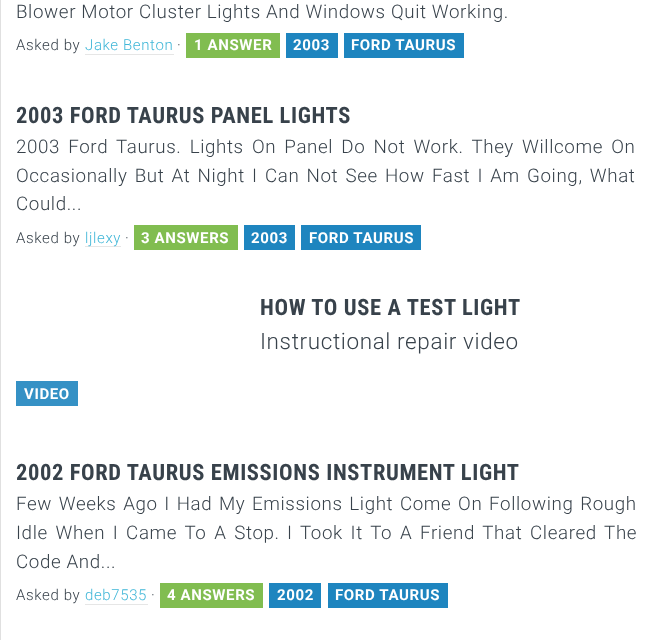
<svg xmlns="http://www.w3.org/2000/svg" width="649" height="640">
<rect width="100%" height="100%" fill="#fff"/>
<rect x="0.5" y="-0.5" width="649" height="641" fill="none" stroke="#e0e0e0"/>
<text x="16" y="18" style="font-family:Roboto;font-size:18.75px;font-weight:300;letter-spacing:0.62px;fill:#38424b">Blower Motor Cluster Lights And Windows Quit Working.</text>
<text x="16" y="50" style="font-family:Roboto;font-size:15px;font-weight:300;letter-spacing:0.62px;fill:#38424b">Asked by</text>
<text x="85" y="50" style="font-family:Roboto;font-size:15px;font-weight:300;letter-spacing:0.62px;fill:#41b7d8">Jake Benton</text>
<rect x="85" y="54" width="89" height="1" fill="#e6e6e6"/>
<text x="177" y="50" style="font-family:Roboto;font-size:15px;font-weight:300;letter-spacing:0.62px;fill:#38424b">·</text>
<rect x="186" y="33" width="94" height="25" fill="#81bd50"/>
<text x="194" y="50" style="font-family:Roboto;font-size:15px;font-weight:bold;letter-spacing:0.62px;fill:#fff">1 ANSWER</text>
<rect x="286" y="33" width="52" height="25" fill="#1e85bf"/>
<text x="293" y="50" style="font-family:Roboto;font-size:15px;font-weight:bold;letter-spacing:0.62px;fill:#fff">2003</text>
<rect x="344" y="33" width="120" height="25" fill="#1e85bf"/>
<text x="351" y="50" style="font-family:Roboto;font-size:15px;font-weight:bold;letter-spacing:0.62px;fill:#fff">FORD TAURUS</text>
<text x="16" y="123" style="font-family:Roboto Condensed;font-size:22.5px;font-weight:bold;letter-spacing:0.62px;fill:#38424b">2003 FORD TAURUS PANEL LIGHTS</text>
<text x="16" y="153" word-spacing="3" style="font-family:Roboto;font-size:18.75px;font-weight:300;letter-spacing:0.62px;fill:#38424b">2003 Ford Taurus. Lights On Panel Do Not Work. They Willcome On</text>
<text x="16" y="182" word-spacing="2" style="font-family:Roboto;font-size:18.75px;font-weight:300;letter-spacing:0.62px;fill:#38424b">Occasionally But At Night I Can Not See How Fast I Am Going, What</text>
<text x="16" y="210" style="font-family:Roboto;font-size:18.75px;font-weight:300;letter-spacing:0.62px;fill:#38424b">Could...</text>
<text x="16" y="243" style="font-family:Roboto;font-size:15px;font-weight:300;letter-spacing:0.62px;fill:#38424b">Asked by</text>
<rect x="85" y="246" width="36" height="1" fill="#e6e6e6"/>
<text x="85" y="243" style="font-family:Roboto;font-size:15px;font-weight:300;letter-spacing:0.62px;fill:#41b7d8">ljlexy</text>
<text x="125" y="243" style="font-family:Roboto;font-size:15px;font-weight:300;letter-spacing:0.62px;fill:#38424b">·</text>
<rect x="134" y="225" width="104" height="25" fill="#81bd50"/>
<text x="141" y="243" style="font-family:Roboto;font-size:15px;font-weight:bold;letter-spacing:0.62px;fill:#fff">3 ANSWERS</text>
<rect x="244" y="225" width="51" height="25" fill="#1e85bf"/>
<text x="251" y="243" style="font-family:Roboto;font-size:15px;font-weight:bold;letter-spacing:0.62px;fill:#fff">2003</text>
<rect x="301" y="225" width="120" height="25" fill="#1e85bf"/>
<text x="309" y="243" style="font-family:Roboto;font-size:15px;font-weight:bold;letter-spacing:0.62px;fill:#fff">FORD TAURUS</text>
<text x="260" y="315" style="font-family:Roboto Condensed;font-size:22.5px;font-weight:bold;letter-spacing:0.62px;fill:#38424b">HOW TO USE A TEST LIGHT</text>
<text x="260" y="349" style="font-family:Roboto;font-size:22.5px;font-weight:300;letter-spacing:0.62px;fill:#38424b">Instructional repair video</text>
<rect x="16" y="381" width="62" height="25" fill="#3591c5"/>
<text x="24" y="399" style="font-family:Roboto;font-size:15px;font-weight:bold;letter-spacing:0.62px;fill:#fff">VIDEO</text>
<text x="16" y="480" style="font-family:Roboto Condensed;font-size:22.5px;font-weight:bold;letter-spacing:0.62px;fill:#38424b">2002 FORD TAURUS EMISSIONS INSTRUMENT LIGHT</text>
<text x="16" y="510" word-spacing="1.5" style="font-family:Roboto;font-size:18.75px;font-weight:300;letter-spacing:0.62px;fill:#38424b">Few Weeks Ago I Had My Emissions Light Come On Following Rough</text>
<text x="16" y="539" word-spacing="2.5" style="font-family:Roboto;font-size:18.75px;font-weight:300;letter-spacing:0.62px;fill:#38424b">Idle When I Came To A Stop.</text>
<text x="287" y="539" word-spacing="2.5" style="font-family:Roboto;font-size:18.75px;font-weight:300;letter-spacing:0.62px;fill:#38424b">I Took It To A Friend That Cleared The</text>
<text x="16" y="568" style="font-family:Roboto;font-size:18.75px;font-weight:300;letter-spacing:0.62px;fill:#38424b">Code And...</text>
<text x="16" y="600" style="font-family:Roboto;font-size:15px;font-weight:300;letter-spacing:0.62px;fill:#38424b">Asked by</text>
<text x="85" y="600" style="font-family:Roboto;font-size:15px;font-weight:300;letter-spacing:0.62px;fill:#41b7d8">deb7535</text>
<rect x="85" y="604" width="63" height="1" fill="#e6e6e6"/>
<text x="151" y="600" style="font-family:Roboto;font-size:15px;font-weight:300;letter-spacing:0.62px;fill:#38424b">·</text>
<rect x="160" y="583" width="103" height="25" fill="#81bd50"/>
<text x="167" y="600" style="font-family:Roboto;font-size:15px;font-weight:bold;letter-spacing:0.62px;fill:#fff">4 ANSWERS</text>
<rect x="269" y="583" width="52" height="25" fill="#1e85bf"/>
<text x="277" y="600" style="font-family:Roboto;font-size:15px;font-weight:bold;letter-spacing:0.62px;fill:#fff">2002</text>
<rect x="328" y="583" width="120" height="25" fill="#1e85bf"/>
<text x="335" y="600" style="font-family:Roboto;font-size:15px;font-weight:bold;letter-spacing:0.62px;fill:#fff">FORD TAURUS</text>
</svg>
